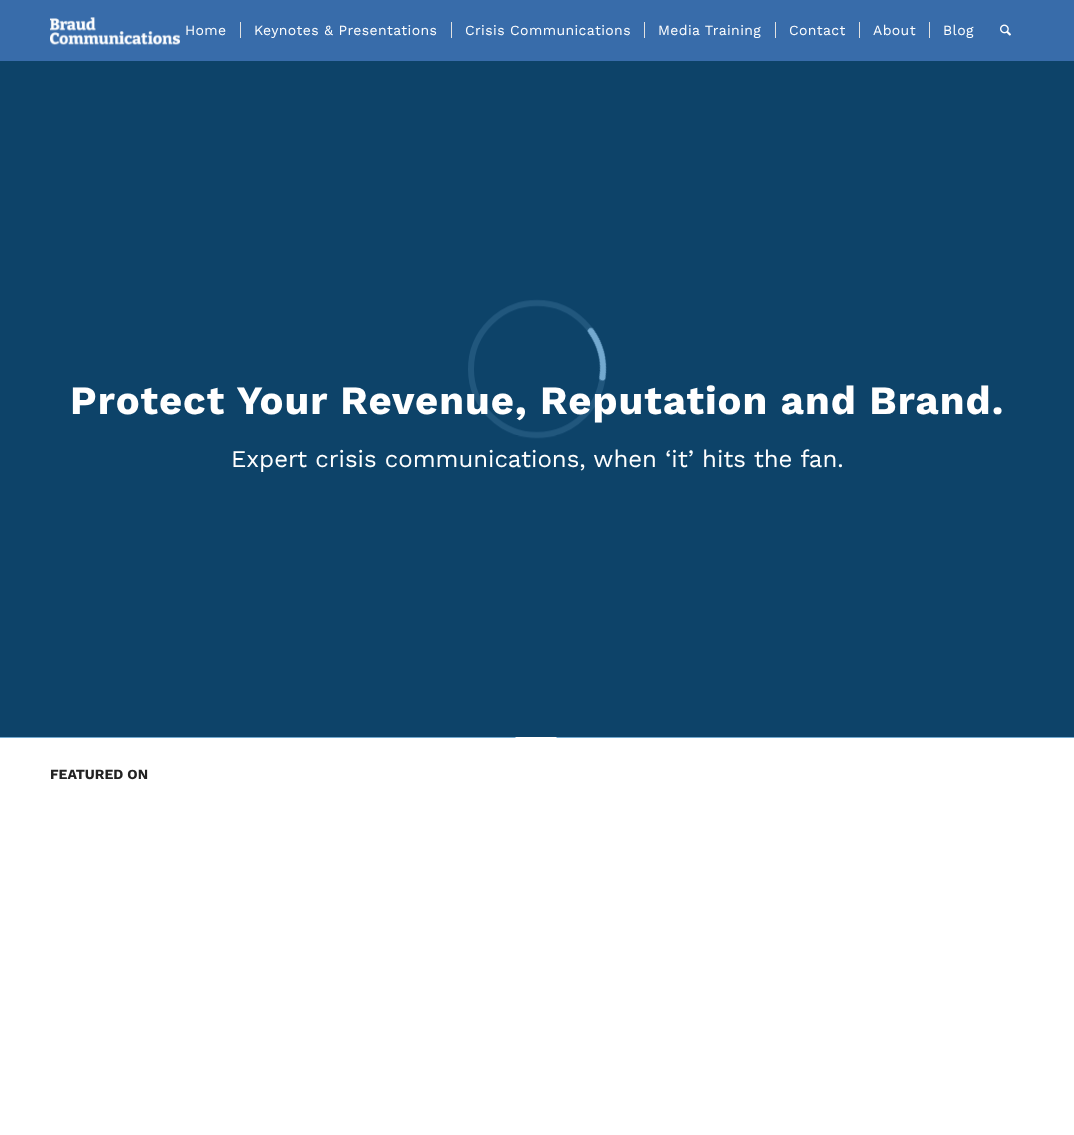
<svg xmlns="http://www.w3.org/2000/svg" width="1074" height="1135">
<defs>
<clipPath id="clip1"><rect x="511" y="737" width="50" height="25"/></clipPath>
</defs>
<rect width="100%" height="100%" fill="#fff"/>
<rect width="1074" height="61" fill="#386caa"/>
<image x="50" y="17" width="130" height="28" href="media/1.png"/>
<text x="185" y="35" style="font-family:Work Sans;font-size:14px;letter-spacing:0.4px;fill:#fff">Home</text>
<text x="254" y="35" style="font-family:Work Sans;font-size:14px;letter-spacing:0.4px;fill:#fff">Keynotes &amp; Presentations</text>
<rect x="240" y="22" width="1" height="16" fill="#e1e1e1"/>
<text x="465" y="35" style="font-family:Work Sans;font-size:14px;letter-spacing:0.4px;fill:#fff">Crisis Communications</text>
<rect x="451" y="22" width="1" height="16" fill="#e1e1e1"/>
<text x="658" y="35" style="font-family:Work Sans;font-size:14px;letter-spacing:0.4px;fill:#fff">Media Training</text>
<rect x="644" y="22" width="1" height="16" fill="#e1e1e1"/>
<text x="789" y="35" style="font-family:Work Sans;font-size:14px;letter-spacing:0.4px;fill:#fff">Contact</text>
<rect x="775" y="22" width="1" height="16" fill="#e1e1e1"/>
<text x="873" y="35" style="font-family:Work Sans;font-size:14px;letter-spacing:0.4px;fill:#fff">About</text>
<rect x="859" y="22" width="1" height="16" fill="#e1e1e1"/>
<text x="943" y="35" style="font-family:Work Sans;font-size:14px;letter-spacing:0.4px;fill:#fff">Blog</text>
<rect x="929" y="22" width="1" height="16" fill="#e1e1e1"/>
<image x="1000" y="24" width="11" height="12" href="media/2.png"/>
<rect y="737" width="1074" height="1" fill="#73a9cf"/>
<rect y="61" width="1074" height="676" fill="#0d4369"/>
<image x="468" y="299" width="139" height="140" href="media/3.png"/>
<text x="70" y="414" style="font-family:Work Sans;font-size:40px;font-weight:bold;letter-spacing:1px;fill:#fff">Protect Your Revenue, Reputation and Brand.</text>
<text x="231" y="467" style="font-family:Work Sans;font-size:24px;fill:#fff">Expert crisis communications, when ‘it’ hits the fan.</text>
<g clip-path="url(#clip1)">
<path d="M536 688l35 35l-35 35l-35-35z" fill="#fff"/>
</g>
<text x="50" y="779" style="font-family:Work Sans;font-size:14px;font-weight:bold;fill:#222">FEATURED ON</text>
</svg>
